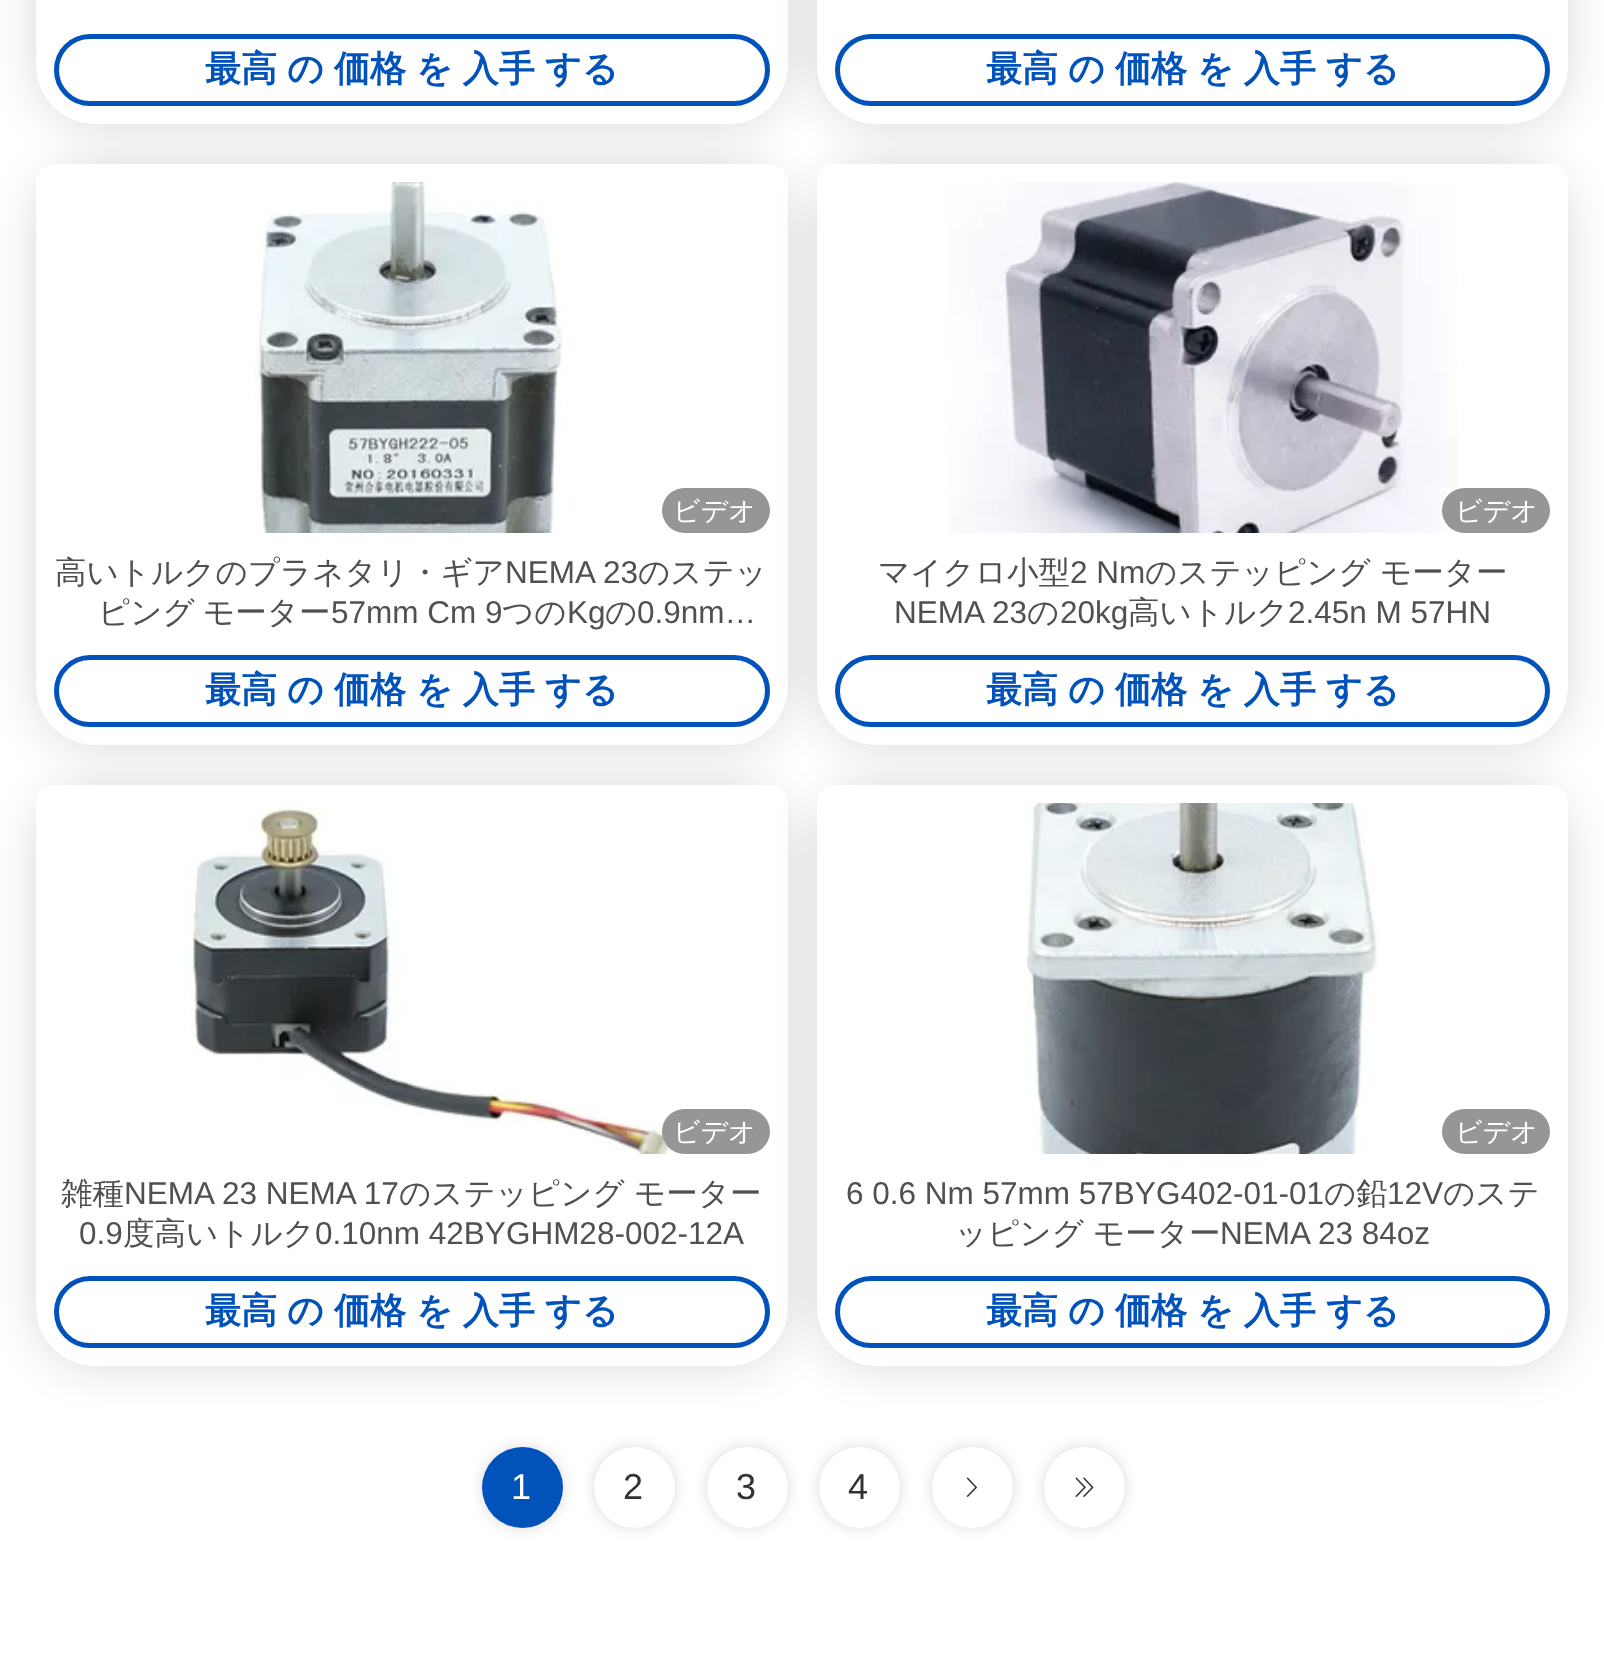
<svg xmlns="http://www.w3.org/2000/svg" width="1604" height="1675">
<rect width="100%" height="100%" fill="#fff"/>
<rect x="36" y="-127" width="752" height="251" rx="59" fill="#00000026" filter="blur(22.5px)"/>
<path d="M54-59h716c10 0 18 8 18 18v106c0 32.5-26.5 59-59 59h-634c-32.5 0-59-26.5-59-59v-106c0-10 8-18 18-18z" fill="#fff"/>
<rect x="817" y="-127" width="751" height="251" rx="59" fill="#00000026" filter="blur(22.5px)"/>
<path d="M835-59h715c10 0 18 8 18 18v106c0 32.5-26.5 59-59 59h-633c-32.5 0-59-26.5-59-59v-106c0-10 8-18 18-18z" fill="#fff"/>
<rect x="36" y="164" width="752" height="581" rx="59" fill="#00000026" filter="blur(22.5px)"/>
<path d="M54 164h716c10 0 18 8 18 18v504c0 32.5-26.5 59-59 59h-634c-32.5 0-59-26.5-59-59v-504c0-10 8-18 18-18z" fill="#fff"/>
<rect x="817" y="164" width="751" height="581" rx="59" fill="#00000026" filter="blur(22.5px)"/>
<rect x="56.5" y="36.5" width="711" height="67" rx="33.5" fill="none" stroke="#0252bb" stroke-width="5"/>
<text x="205" y="81" word-spacing="-0.75" style="font-family:WenQuanYi Zen Hei;font-size:36px;font-weight:bold;fill:#0252bb">最高 の 価格 を 入手 する</text>
<rect x="837.5" y="36.5" width="710" height="67" rx="33.5" fill="none" stroke="#0252bb" stroke-width="5"/>
<text x="986" y="81" word-spacing="-0.75" style="font-family:WenQuanYi Zen Hei;font-size:36px;font-weight:bold;fill:#0252bb">最高 の 価格 を 入手 する</text>
<image x="254" y="182" width="309" height="351" href="media/1.png"/>
<rect x="662" y="488" width="108" height="45" rx="22.5" fill="#969696"/>
<text x="673" y="520" style="font-family:WenQuanYi Zen Hei;font-size:27px;font-weight:500;fill:#fff">ビデオ</text>
<text x="55" y="583" style="font-family:WenQuanYi Zen Hei;font-size:31.5px;font-weight:500;fill:#505050">高いトルクのプラネタリ・ギア</text>
<text x="505" y="583" style="font-family:Liberation Sans;font-size:31.5px;fill:#505050">NEMA 23</text>
<text x="638" y="583" style="font-family:WenQuanYi Zen Hei;font-size:31.5px;font-weight:500;fill:#505050">のステッ</text>
<text x="98" y="623" style="font-family:WenQuanYi Zen Hei;font-size:31.5px;font-weight:500;fill:#505050">ピング</text>
<text x="203" y="623" style="font-family:WenQuanYi Zen Hei;font-size:31.5px;font-weight:500;fill:#505050">モーター</text>
<text x="331" y="623" style="font-family:Liberation Sans;font-size:31.5px;fill:#505050">57mm Cm 9</text>
<text x="502" y="623" style="font-family:WenQuanYi Zen Hei;font-size:31.5px;font-weight:500;fill:#505050">つの</text>
<text x="567" y="623" style="font-family:Liberation Sans;font-size:31.5px;fill:#505050">Kg</text>
<text x="605" y="623" style="font-family:WenQuanYi Zen Hei;font-size:31.5px;font-weight:500;fill:#505050">の</text>
<text x="637" y="623" style="font-family:Liberation Sans;font-size:31.5px;fill:#505050">0.9nm…</text>
<path d="M835 164h715c10 0 18 8 18 18v504c0 32.5-26.5 59-59 59h-633c-32.5 0-59-26.5-59-59v-504c0-10 8-18 18-18z" fill="#fff"/>
<rect x="36" y="785" width="752" height="581" rx="59" fill="#00000026" filter="blur(22.5px)"/>
<path d="M54 785h716c10 0 18 8 18 18v504c0 32.5-26.5 59-59 59h-634c-32.5 0-59-26.5-59-59v-504c0-10 8-18 18-18z" fill="#fff"/>
<rect x="817" y="785" width="751" height="581" rx="59" fill="#00000026" filter="blur(22.5px)"/>
<rect x="56.5" y="657.5" width="711" height="67" rx="33.5" fill="none" stroke="#0252bb" stroke-width="5"/>
<text x="205" y="702" word-spacing="-0.75" style="font-family:WenQuanYi Zen Hei;font-size:36px;font-weight:bold;fill:#0252bb">最高 の 価格 を 入手 する</text>
<image x="948" y="182" width="510" height="351" href="media/2.png"/>
<rect x="1442" y="488" width="108" height="45" rx="22.5" fill="#969696"/>
<text x="1455" y="520" style="font-family:WenQuanYi Zen Hei;font-size:27px;font-weight:500;fill:#fff">ビデオ</text>
<text x="878" y="583" style="font-family:WenQuanYi Zen Hei;font-size:31.5px;font-weight:500;fill:#505050">マイクロ小型</text>
<text x="1070" y="583" style="font-family:Liberation Sans;font-size:31.5px;fill:#505050">2 Nm</text>
<text x="1145" y="583" style="font-family:WenQuanYi Zen Hei;font-size:31.5px;font-weight:500;fill:#505050">のステッピング</text>
<text x="1380" y="583" style="font-family:WenQuanYi Zen Hei;font-size:31.5px;font-weight:500;fill:#505050">モーター</text>
<text x="894" y="623" style="font-family:Liberation Sans;font-size:31.5px;fill:#505050">NEMA 23</text>
<text x="1027" y="623" style="font-family:WenQuanYi Zen Hei;font-size:31.5px;font-weight:500;fill:#505050">の</text>
<text x="1060" y="623" style="font-family:Liberation Sans;font-size:31.5px;fill:#505050">20kg</text>
<text x="1128" y="623" style="font-family:WenQuanYi Zen Hei;font-size:31.5px;font-weight:500;fill:#505050">高いトルク</text>
<text x="1288" y="623" style="font-family:Liberation Sans;font-size:31.5px;fill:#505050">2.45n M 57HN</text>
<rect x="837.5" y="657.5" width="710" height="67" rx="33.5" fill="none" stroke="#0252bb" stroke-width="5"/>
<text x="986" y="702" word-spacing="-0.75" style="font-family:WenQuanYi Zen Hei;font-size:36px;font-weight:bold;fill:#0252bb">最高 の 価格 を 入手 する</text>
<image x="186" y="806" width="486" height="348" href="media/3.png"/>
<rect x="662" y="1109" width="108" height="45" rx="22.5" fill="#969696"/>
<text x="673" y="1141" style="font-family:WenQuanYi Zen Hei;font-size:27px;font-weight:500;fill:#fff">ビデオ</text>
<text x="61" y="1204" style="font-family:WenQuanYi Zen Hei;font-size:31.5px;font-weight:500;fill:#505050">雑種</text>
<text x="124" y="1204" style="font-family:Liberation Sans;font-size:31.5px;fill:#505050">NEMA 23 NEMA 17</text>
<text x="399" y="1204" style="font-family:WenQuanYi Zen Hei;font-size:31.5px;font-weight:500;fill:#505050">のステッピング</text>
<text x="634" y="1204" style="font-family:WenQuanYi Zen Hei;font-size:31.5px;font-weight:500;fill:#505050">モーター</text>
<text x="79" y="1244" style="font-family:Liberation Sans;font-size:31.5px;fill:#505050">0.9</text>
<text x="123" y="1244" style="font-family:WenQuanYi Zen Hei;font-size:31.5px;font-weight:500;fill:#505050">度高いトルク</text>
<text x="315" y="1244" style="font-family:Liberation Sans;font-size:31.5px;fill:#505050">0.10nm 42BYGHM28-002-12A</text>
<rect x="56.5" y="1278.5" width="711" height="67" rx="33.5" fill="none" stroke="#0252bb" stroke-width="5"/>
<text x="205" y="1323" word-spacing="-0.75" style="font-family:WenQuanYi Zen Hei;font-size:36px;font-weight:bold;fill:#0252bb">最高 の 価格 を 入手 する</text>
<path d="M835 785h715c10 0 18 8 18 18v504c0 32.5-26.5 59-59 59h-633c-32.5 0-59-26.5-59-59v-504c0-10 8-18 18-18z" fill="#fff"/>
<image x="1026" y="803" width="353" height="351" href="media/4.png"/>
<rect x="1442" y="1109" width="108" height="45" rx="22.5" fill="#969696"/>
<text x="1455" y="1141" style="font-family:WenQuanYi Zen Hei;font-size:27px;font-weight:500;fill:#fff">ビデオ</text>
<text x="846" y="1204" style="font-family:Liberation Sans;font-size:31.5px;fill:#505050">6 0.6 Nm 57mm 57BYG402-01-01</text>
<text x="1324" y="1204" style="font-family:WenQuanYi Zen Hei;font-size:31.5px;font-weight:500;fill:#505050">の鉛</text>
<text x="1387" y="1204" style="font-family:Liberation Sans;font-size:31.5px;fill:#505050">12V</text>
<text x="1443" y="1204" style="font-family:WenQuanYi Zen Hei;font-size:31.5px;font-weight:500;fill:#505050">のステ</text>
<text x="955" y="1244" style="font-family:WenQuanYi Zen Hei;font-size:31.5px;font-weight:500;fill:#505050">ッピング</text>
<text x="1093" y="1244" style="font-family:WenQuanYi Zen Hei;font-size:31.5px;font-weight:500;fill:#505050">モーター</text>
<text x="1220" y="1244" style="font-family:Liberation Sans;font-size:31.5px;fill:#505050">NEMA 23 84oz</text>
<rect x="837.5" y="1278.5" width="710" height="67" rx="33.5" fill="none" stroke="#0252bb" stroke-width="5"/>
<text x="986" y="1323" word-spacing="-0.75" style="font-family:WenQuanYi Zen Hei;font-size:36px;font-weight:bold;fill:#0252bb">最高 の 価格 を 入手 する</text>
<rect x="482" y="1447" width="81" height="81" rx="40.5" fill="#00000026" filter="blur(7px)"/>
<circle cx="522.5" cy="1487.5" r="40.5" fill="#0252bb"/>
<text x="511" y="1499" style="font-family:Liberation Sans;font-size:36px;fill:#fff">1</text>
<rect x="594" y="1447" width="81" height="81" rx="40.5" fill="#00000026" filter="blur(7px)"/>
<circle cx="634.5" cy="1487.5" r="40.5" fill="#fff"/>
<text x="623" y="1499" style="font-family:Liberation Sans;font-size:36px;fill:#323232">2</text>
<rect x="707" y="1447" width="81" height="81" rx="40.5" fill="#00000026" filter="blur(7px)"/>
<circle cx="747.5" cy="1487.5" r="40.5" fill="#fff"/>
<text x="736" y="1499" style="font-family:Liberation Sans;font-size:36px;fill:#323232">3</text>
<rect x="819" y="1447" width="81" height="81" rx="40.5" fill="#00000026" filter="blur(7px)"/>
<circle cx="859.5" cy="1487.5" r="40.5" fill="#fff"/>
<text x="848" y="1499" style="font-family:Liberation Sans;font-size:36px;fill:#323232">4</text>
<rect x="932" y="1447" width="81" height="81" rx="40.5" fill="#00000026" filter="blur(7px)"/>
<circle cx="972.5" cy="1487.5" r="40.5" fill="#fff"/>
<image x="966" y="1477" width="11" height="20" href="media/5.png"/>
<rect x="1044" y="1447" width="81" height="81" rx="40.5" fill="#00000026" filter="blur(7px)"/>
<circle cx="1084.5" cy="1487.5" r="40.5" fill="#fff"/>
<image x="1075" y="1477" width="19" height="20" href="media/6.png"/>
</svg>
